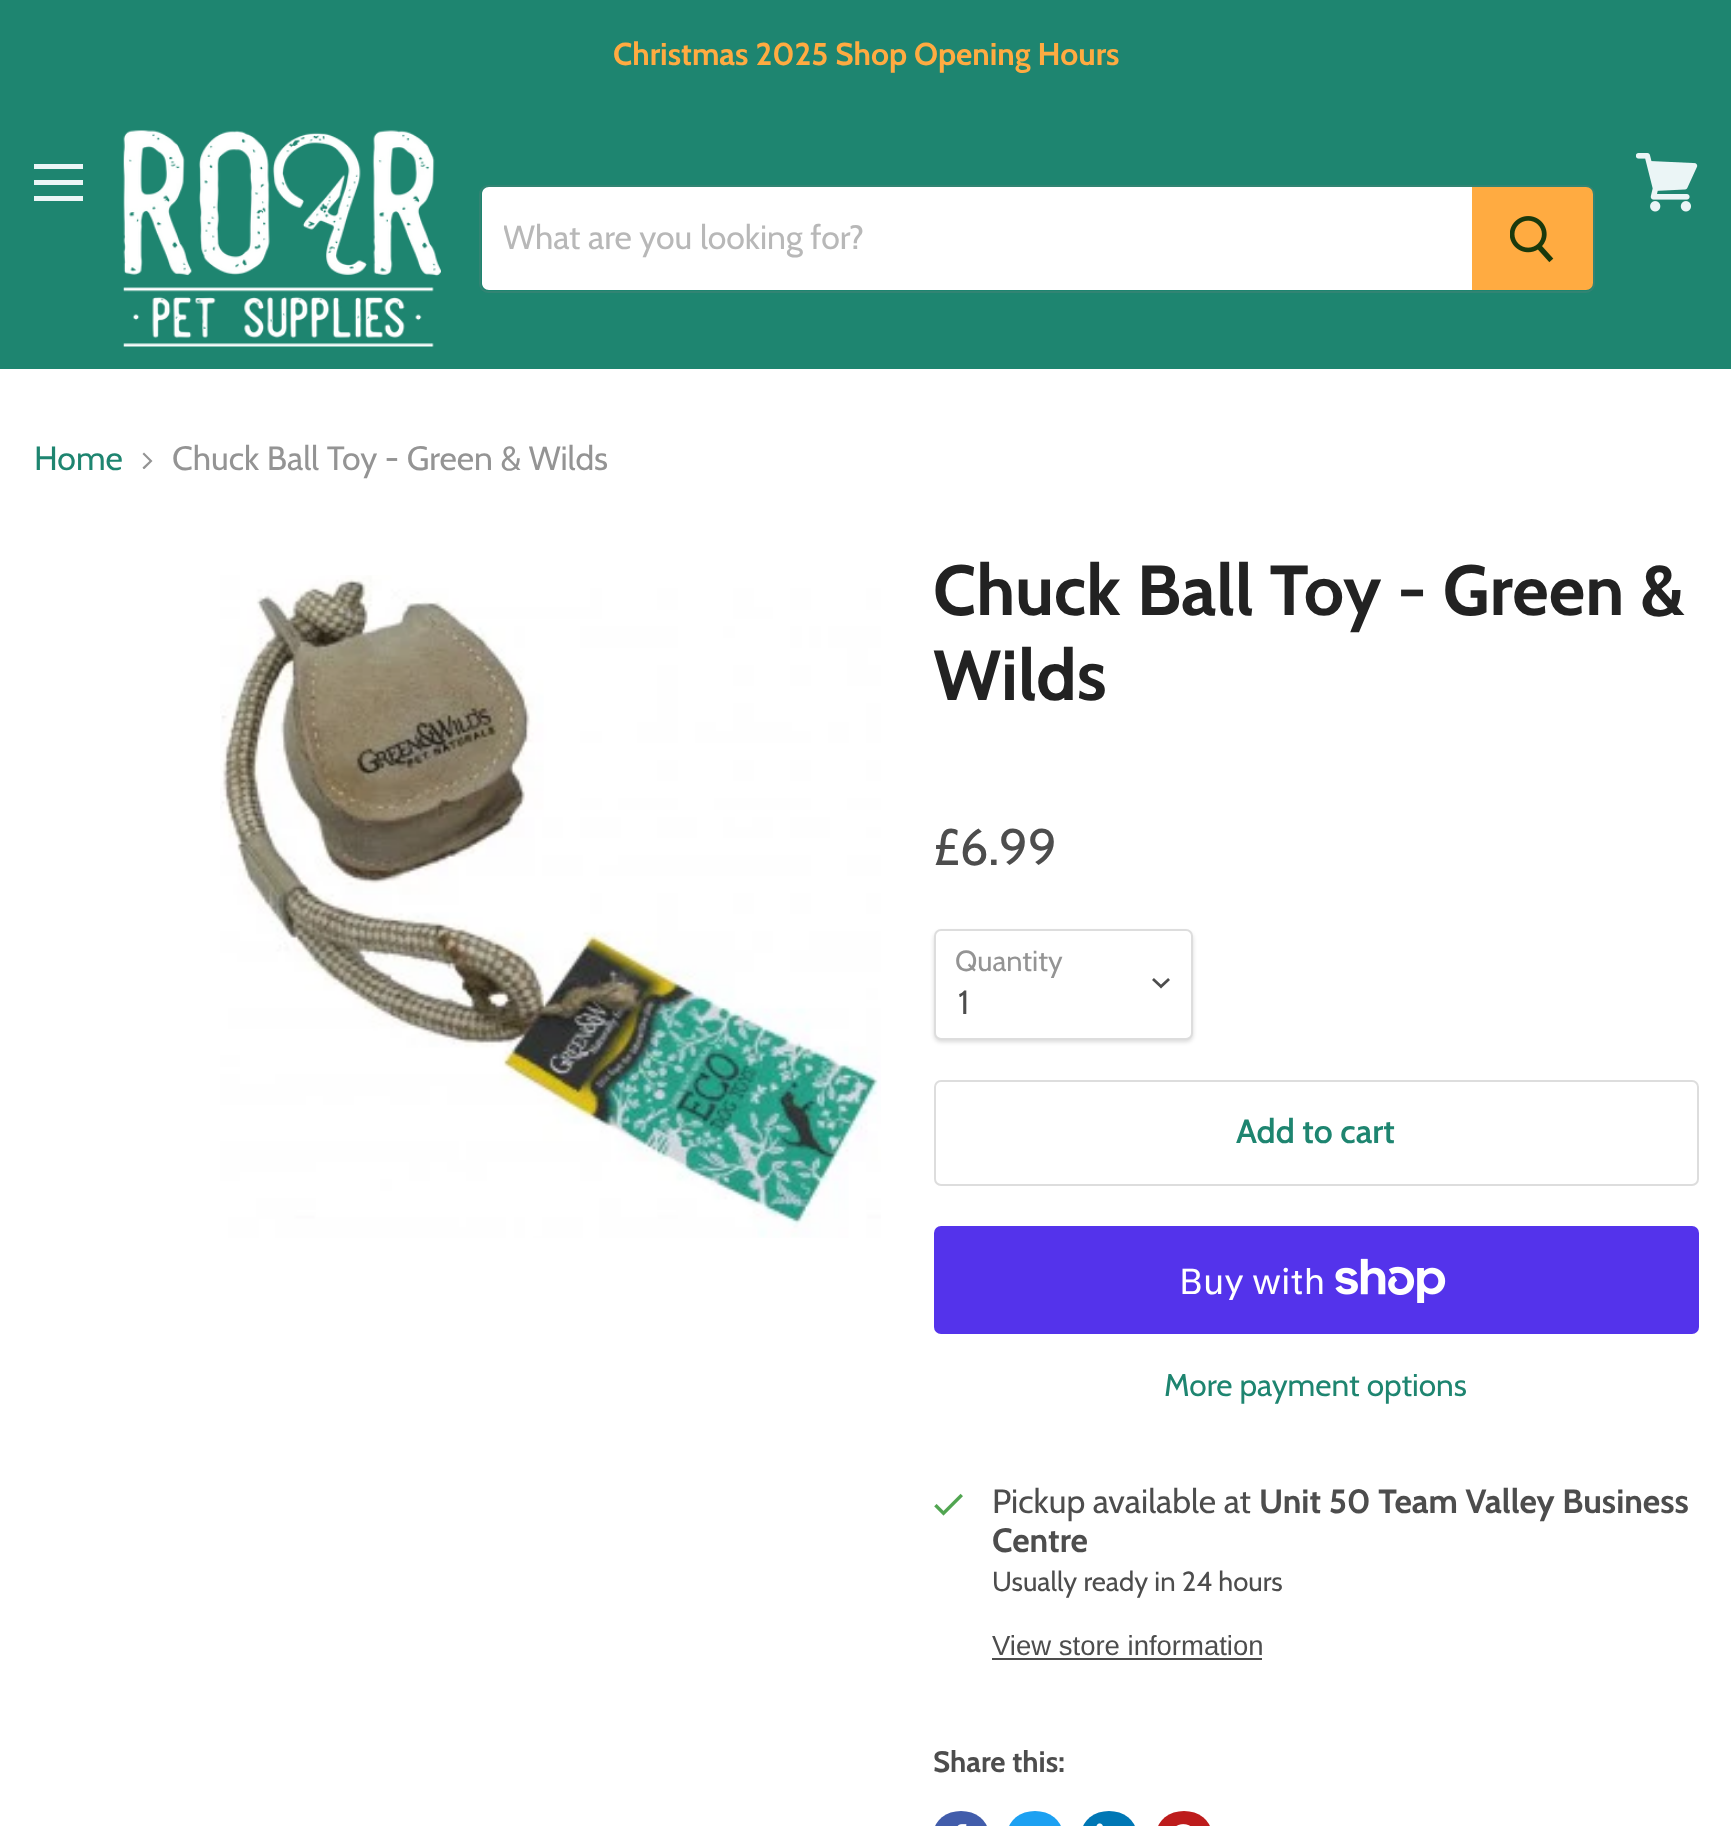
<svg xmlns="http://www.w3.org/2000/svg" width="1731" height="1826">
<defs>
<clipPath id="clip1"><rect x="504" y="218" width="945" height="41"/></clipPath>
</defs>
<rect width="100%" height="100%" fill="#fff"/>
<rect width="1731" height="369" fill="#1e8570"/>
<text x="613" y="65" style="font-family:Cabin;font-size:31.6px;font-weight:bold;fill:#ffab41">Christmas 2025 Shop Opening Hours</text>
<rect x="34" y="164" width="49" height="5" fill="#ebf5f6"/>
<rect x="34" y="180" width="49" height="5" fill="#ebf5f6"/>
<rect x="34" y="196" width="49" height="5" fill="#ebf5f6"/>
<image x="1636" y="153" width="62" height="59" href="media/1.png"/>
<image x="123" y="130" width="318" height="217" href="media/2.png"/>
<rect x="480" y="186" width="1114" height="106" rx="8" fill="none" stroke="#80808033" stroke-width="2"/>
<path d="M489 187h983v103h-983c-4 0-7-3-7-7v-89c0-4 3-7 7-7z" fill="#fff"/>
<g clip-path="url(#clip1)">
<text x="503" y="249" style="font-family:Cabin;font-size:33.75px;fill:#b8b8b8">What are you looking for?</text>
</g>
<path d="M1473 188h113c3.5 0 6 2.5 6 6v89c0 3.5-2.5 6-6 6h-113z" fill="#ffab41" stroke="#ffab41" stroke-width="2"/>
<image x="1510" y="216" width="44" height="47" href="media/3.png"/>
<text x="34" y="470" style="font-family:Cabin;font-size:33.75px;fill:#1e8570">Home</text>
<path d="M142.5 467.5l7-6.5l-7-7l1.5-1.5l8.5 8.5l-8 8h-1z" fill="#949494"/>
<text x="172" y="470" style="font-family:Cabin;font-size:33.75px;fill:#949494">Chuck Ball Toy - Green &amp; Wilds</text>
<image x="220" y="575" width="661" height="663" href="media/4.png"/>
<text x="933" y="615" style="font-family:Cabin;font-size:70.9px;font-weight:bold;fill:#222">Chuck Ball Toy - Green &amp;</text>
<text x="933" y="700" style="font-family:Cabin;font-size:70.9px;font-weight:bold;fill:#222">Wilds</text>
<text x="933" y="865" style="font-family:Cabin;font-size:51px;fill:#4d4d4d">£6.99</text>
<rect x="934" y="932" width="259" height="110" rx="7" fill="#00000026" filter="blur(2px)"/>
<rect x="935" y="930" width="257" height="109" rx="6" fill="#fff" stroke="#ddd" stroke-width="2"/>
<text x="955" y="971" style="font-family:Cabin;font-size:29px;fill:#949494">Quantity</text>
<path d="M1161 986.5l7-6.5m-7 6.5l-7-6.5" fill="none" stroke="#4d4d4d" stroke-width="2.8" stroke-linecap="square"/>
<text x="958" y="1014" style="font-family:Cabin;font-size:33.75px;fill:#4d4d4d">1</text>
<rect x="935" y="1081" width="763" height="104" rx="6" fill="none" stroke="#ddd" stroke-width="2"/>
<text x="1236" y="1143" style="font-family:Cabin;font-size:33.75px;font-weight:600;fill:#1e8570">Add to cart</text>
<rect x="934" y="1226" width="765" height="108" rx="7" fill="#5433eb"/>
<text x="1179" y="1294" style="font-family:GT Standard;font-size:36px;fill:#fff">Buy with</text>
<image x="1335" y="1258" width="111" height="45" href="media/5.png"/>
<text x="1164" y="1396" style="font-family:Cabin;font-size:31.6px;fill:#1e8570">More payment options</text>
<image x="934" y="1493" width="29" height="23" href="media/6.png"/>
<text x="992" y="1513" style="font-family:Cabin;font-size:33.75px;fill:#4d4d4d">Pickup available at</text>
<text x="1259" y="1513" style="font-family:Cabin;font-size:33.75px;font-weight:bold;fill:#4d4d4d">Unit 50 Team Valley Business</text>
<text x="992" y="1552" style="font-family:Cabin;font-size:33.75px;font-weight:bold;fill:#4d4d4d">Centre</text>
<text x="992" y="1591" style="font-family:Cabin;font-size:27.5px;fill:#4d4d4d">Usually ready in 24 hours</text>
<text x="992" y="1655" style="font-family:Liberation Sans;font-size:27.5px;fill:#4d4d4d">View store information</text>
<rect x="992" y="1658" width="270" height="2" fill="#4d4d4d"/>
<text x="933" y="1772" style="font-family:Cabin;font-size:29.5px;font-weight:bold;fill:#4d4d4d">Share this:</text>
<rect x="934" y="1811" width="54" height="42" rx="27" fill="#425dab"/>
<image x="957" y="1824" width="10" height="2" href="media/7.png"/>
<rect x="1008" y="1811" width="54" height="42" rx="27" fill="#1da1f2"/>
<rect x="1082" y="1811" width="54" height="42" rx="27" fill="#0077b5"/>
<image x="1096" y="1823" width="7" height="3" href="media/8.png"/>
<rect x="1157" y="1811" width="54" height="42" rx="27" fill="#bd1c1c"/>
<image x="1176" y="1824" width="14" height="2" href="media/9.png"/>
</svg>
